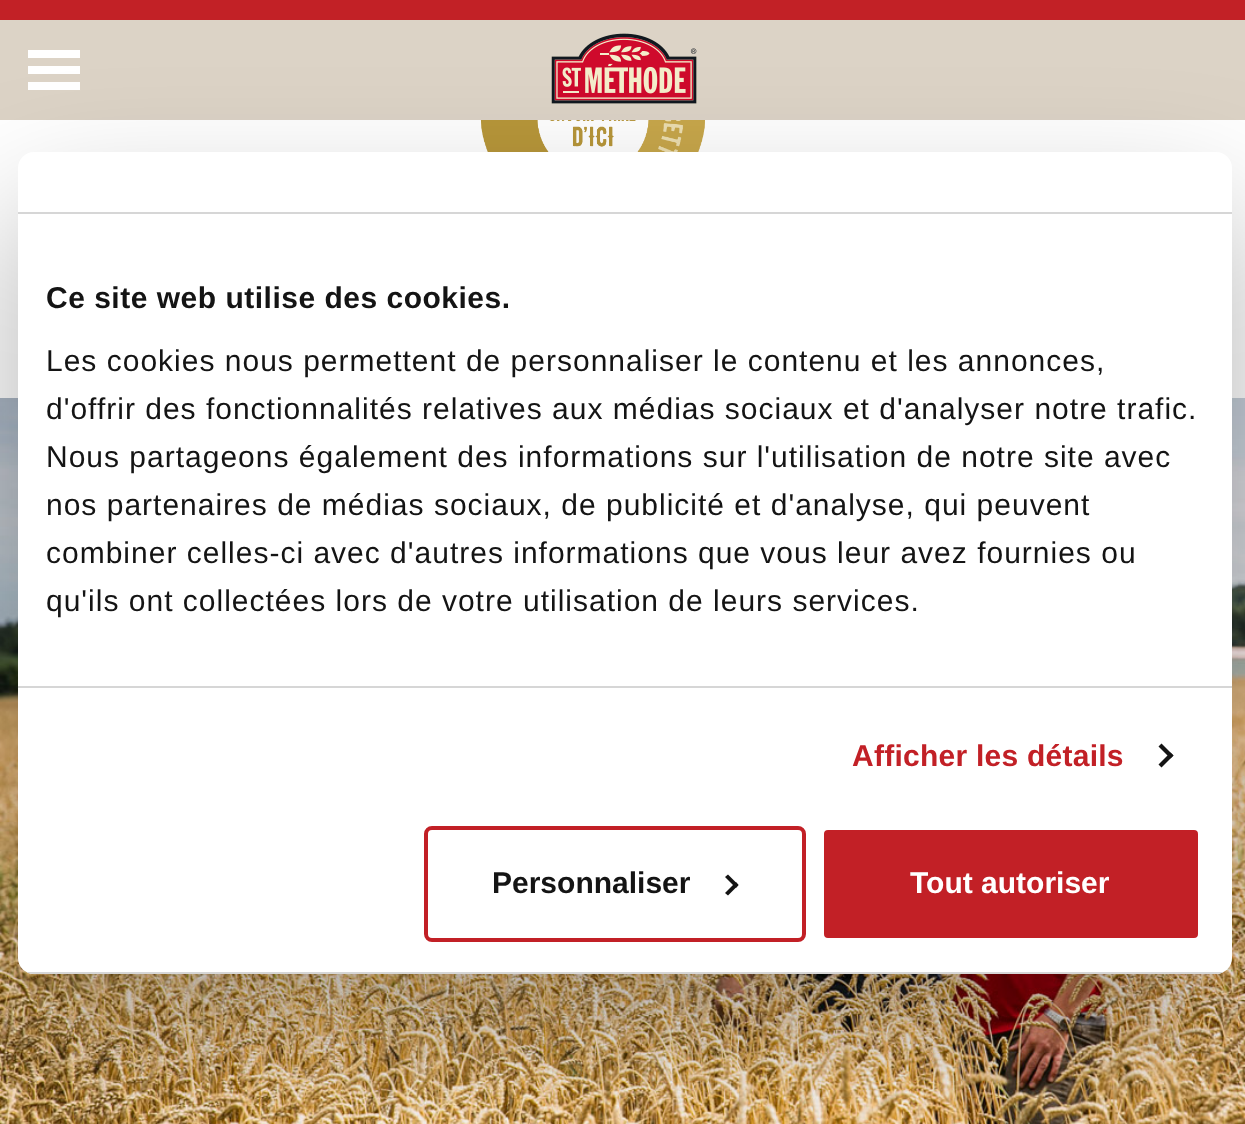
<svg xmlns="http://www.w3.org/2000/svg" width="1245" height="1124">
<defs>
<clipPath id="clip1"><rect x="18" y="152" width="1214" height="822" rx="16"/></clipPath>
</defs>
<rect width="100%" height="100%" fill="#fff"/>
<rect y="20" width="1245" height="100" fill="#dcd3c6"/>
<rect width="1245" height="20" fill="#c22126"/>
<path d="M80 58h-52v-8h52zm0 8h-52v8h52zm0 16h-52v8h52z" fill="#fff"/>
<image x="551" y="33" width="146" height="71" href="media/1.png"/>
<image x="480" y="120" width="225" height="32" href="media/2.png"/>
<image x="0" y="398" width="1245" height="726" href="media/3.png"/>
<rect x="18" y="216" width="1214" height="822" rx="16" fill="#0000004d" filter="blur(68px)"/>
<rect x="18" y="152" width="1214" height="822" rx="16" fill="#fff"/>
<rect x="18" y="212" width="1214" height="2" fill="#d6d6d6"/>
<rect x="18" y="686" width="1214" height="2" fill="#d6d6d6"/>
<text x="46" y="308" style="font-family:Liberation Sans;font-size:30px;font-weight:bold;letter-spacing:0.5px;fill:#141414">Ce site web utilise des cookies.</text>
<text x="46" y="371" style="font-family:Liberation Sans;font-size:30px;letter-spacing:1px;fill:#141414">Les cookies nous permettent de personnaliser le contenu et les annonces,</text>
<text x="46" y="419" style="font-family:Liberation Sans;font-size:30px;letter-spacing:1px;fill:#141414">d'offrir des fonctionnalités relatives aux médias sociaux et d'analyser notre trafic.</text>
<text x="46" y="467" style="font-family:Liberation Sans;font-size:30px;letter-spacing:1px;fill:#141414">Nous partageons également des informations sur l'utilisation de notre site avec</text>
<text x="46" y="515" style="font-family:Liberation Sans;font-size:30px;letter-spacing:1px;fill:#141414">nos partenaires de médias sociaux, de publicité et d'analyse, qui peuvent</text>
<text x="46" y="563" style="font-family:Liberation Sans;font-size:30px;letter-spacing:1px;fill:#141414">combiner celles-ci avec d'autres informations que vous leur avez fournies ou</text>
<text x="46" y="611" style="font-family:Liberation Sans;font-size:30px;letter-spacing:1px;fill:#141414">qu'ils ont collectées lors de votre utilisation de leurs services.</text>
<text x="852" y="766" style="font-family:Liberation Sans;font-size:30px;font-weight:bold;letter-spacing:0.25px;fill:#c22026">Afficher les détails</text>
<path d="M1161.5 743.5l12 12l-3 3l-12-12z" fill="#141414"/>
<path d="M1170.5 752.5l3 3l-12 12l-3-3z" fill="#141414"/>
<g clip-path="url(#clip1)">
<rect x="18" y="972" width="1214" height="2" fill="#d6d6d6"/>
</g>
<rect x="426" y="828" width="378" height="112" rx="6" fill="none" stroke="#c22026" stroke-width="4"/>
<text x="492" y="893" style="font-family:Liberation Sans;font-size:30px;font-weight:bold;fill:#141414">Personnaliser</text>
<path d="M728 874.5l10.5 10.5l-2.5 3l-11-11z" fill="#141414"/>
<path d="M736 882l2.5 3l-10.5 10.5l-3-2.5z" fill="#141414"/>
<rect x="822" y="828" width="378" height="112" rx="6" fill="#c22026" stroke="#fff" stroke-width="4"/>
<text x="910" y="893" style="font-family:Liberation Sans;font-size:30px;font-weight:bold;fill:#fff">Tout autoriser</text>
</svg>
